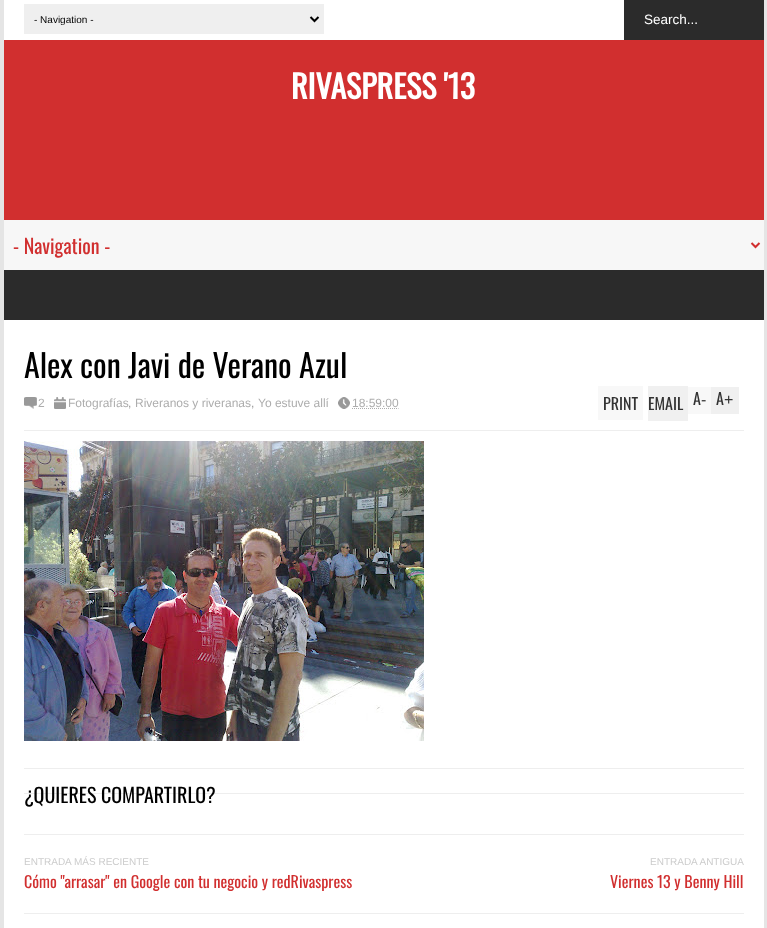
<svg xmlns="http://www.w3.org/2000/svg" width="767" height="928">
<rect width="100%" height="100%" fill="#e5e5e5"/>
<rect x="4" width="760" height="928" fill="#fff"/>
<rect x="24" y="4" width="300" height="30" fill="#efefef"/>
<path d="M310.5 17l4 4l4-4" fill="none" stroke="#000" stroke-width="2"/>
<text x="34" y="23" style="font-family:Liberation Sans;font-size:10px;fill:#000">- Navigation -</text>
<rect x="624" width="140" height="40" fill="#2b2b2b"/>
<text x="644" y="24" style="font-family:Liberation Sans;font-size:13.5px;fill:#fff">Search...</text>
<rect x="4" y="40" width="760" height="180" fill="#d12f2f"/>
<text x="291" y="99" style="font-family:Oswald;font-size:32px;font-weight:bold;fill:#fff">RIVASPRESS '13</text>
<rect x="4" y="220" width="760" height="50" fill="#f7f7f7"/>
<path d="M751.5 243l4 4l4-4" fill="none" stroke="#d12f2f" stroke-width="2"/>
<text x="13" y="254" style="font-family:Oswald;font-size:20px;fill:#d12f2f">- Navigation -</text>
<rect x="4" y="270" width="760" height="50" fill="#2b2b2b"/>
<text x="24" y="378" style="font-family:Oswald;font-size:32px;fill:#000">Alex con Javi de Verano Azul</text>
<image x="24" y="397" width="13" height="12" href="media/1.png"/>
<text x="38" y="407" style="font-family:Liberation Sans;font-size:12px;fill:#adadad">2</text>
<image x="54" y="397" width="12" height="12" href="media/2.png"/>
<text x="68" y="407" style="font-family:Liberation Sans;font-size:12px;fill:#adadad">Fotografías</text>
<text x="128" y="407" style="font-family:Liberation Sans;font-size:12px;fill:#999">,</text>
<text x="135" y="407" style="font-family:Liberation Sans;font-size:12px;fill:#adadad">Riveranos y riveranas</text>
<text x="251" y="407" style="font-family:Liberation Sans;font-size:12px;fill:#999">,</text>
<text x="258" y="407" style="font-family:Liberation Sans;font-size:12px;fill:#adadad">Yo estuve allí</text>
<image x="338" y="397" width="12" height="12" href="media/3.png"/>
<text x="352" y="407" style="font-family:Liberation Sans;font-size:12px;fill:#adadad">18:59:00</text>
<path d="M352 408.5h46.5" fill="none" stroke="#adadad" stroke-dasharray="1 1"/>
<rect x="598" y="386" width="45" height="34" fill="#f8f8f8"/>
<text x="603" y="410" style="font-family:Oswald;font-size:16px;fill:#333">PRINT</text>
<rect x="648" y="386" width="40" height="35" fill="#f0f0f0"/>
<text x="648" y="410" style="font-family:Oswald;font-size:16px;fill:#333">EMAIL</text>
<rect x="688" y="387" width="23" height="27" fill="#f8f8f8"/>
<text x="693" y="405" style="font-family:Oswald;font-size:16px;fill:#333">A</text>
<text x="701" y="405" style="font-family:Liberation Sans;font-size:16px;fill:#333">-</text>
<rect x="711" y="387" width="28" height="27" fill="#f0f0f0"/>
<text x="716" y="405" style="font-family:Oswald;font-size:16px;fill:#333">A</text>
<text x="724" y="405" style="font-family:Liberation Sans;font-size:16px;fill:#333">+</text>
<rect x="24" y="430" width="720" height="1" fill="#eee"/>
<image x="24" y="441" width="400" height="300" href="media/4.png"/>
<rect x="24" y="768" width="720" height="1" fill="#eee"/>
<rect x="24" y="793" width="720" height="1" fill="#eee"/>
<text x="24" y="803" style="font-family:Oswald;font-size:20px;fill:#000">¿QUIERES COMPARTIRLO?</text>
<rect x="24" y="834" width="720" height="1" fill="#eee"/>
<rect x="24" y="913" width="720" height="1" fill="#eee"/>
<text x="24" y="865" style="font-family:Liberation Sans;font-size:10px;fill:#ccc">ENTRADA MÁS RECIENTE</text>
<text x="24" y="888" style="font-family:Oswald;font-size:16px;fill:#d12f2f">Cómo "arrasar" en Google con tu negocio y redRivaspress</text>
<text x="650" y="865" style="font-family:Liberation Sans;font-size:10px;fill:#ccc">ENTRADA ANTIGUA</text>
<text x="610" y="888" style="font-family:Oswald;font-size:16px;fill:#d12f2f">Viernes 13 y Benny Hill</text>
</svg>
